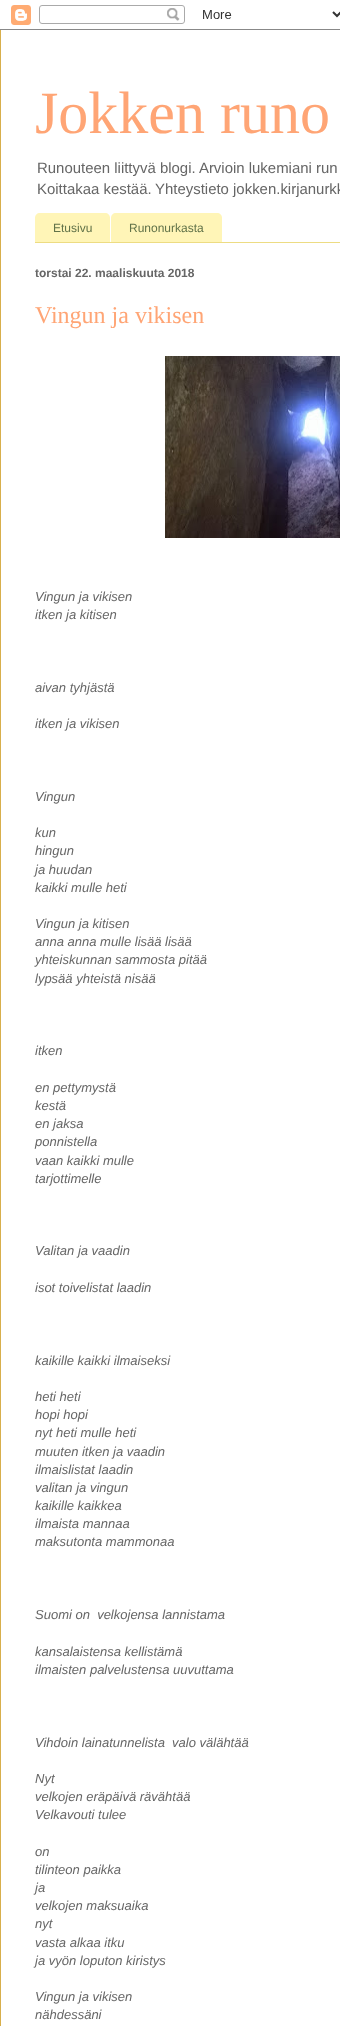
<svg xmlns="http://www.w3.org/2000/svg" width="340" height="2026">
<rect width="100%" height="100%" fill="#fff"/>
<image x="0" y="0" width="340" height="29" href="media/1.png"/>
<image x="0" y="5" width="340" height="25" href="media/2.png"/>
<rect y="30" width="1" height="1996" fill="#d8af4c"/>
<text x="35" y="133" style="font-family:Liberation Serif;font-size:60px;fill:#ffa575">Jokken runo</text>
<text x="37" y="173" style="font-family:Liberation Sans;font-size:14.95px;fill:#666">Runouteen liittyvä blogi. Arvioin lukemiani run</text>
<text x="37" y="194" style="font-family:Liberation Sans;font-size:14.95px;fill:#666">Koittakaa kestää.</text>
<text x="155" y="194" style="font-family:Liberation Sans;font-size:14.95px;fill:#666">Yhteystieto jokken.kirjanurkk</text>
<rect x="35" y="242" width="305" height="1" fill="#eddc83"/>
<path d="M40 213h65c3 0 5 2 5 5v24h-75v-24c0-3 2-5 5-5z" fill="#fff5b7"/>
<text x="53" y="232" style="font-family:Liberation Sans;font-size:12px;fill:#627349">Etusivu</text>
<path d="M116 213h101c3 0 5 2 5 5v24h-111v-24c0-3 2-5 5-5z" fill="#fff5b7"/>
<text x="129" y="232" style="font-family:Liberation Sans;font-size:12px;fill:#627349">Runonurkasta</text>
<text x="35" y="277" style="font-family:Liberation Sans;font-size:12px;font-weight:bold;fill:#666">torstai 22. maaliskuuta 2018</text>
<text x="35" y="323" style="font-family:Liberation Serif;font-size:24px;fill:#ffa575">Vingun ja vikisen</text>
<image x="165" y="356" width="175" height="182" href="media/3.png"/>
<text x="35" y="601" style="font-family:Liberation Sans;font-size:13px;font-style:italic;fill:#666">Vingun ja vikisen</text>
<text x="35" y="619" style="font-family:Liberation Sans;font-size:13px;font-style:italic;fill:#666">itken ja kitisen</text>
<text x="35" y="692" style="font-family:Liberation Sans;font-size:13px;font-style:italic;fill:#666">aivan tyhjästä</text>
<text x="35" y="728" style="font-family:Liberation Sans;font-size:13px;font-style:italic;fill:#666">itken ja vikisen</text>
<text x="35" y="801" style="font-family:Liberation Sans;font-size:13px;font-style:italic;fill:#666">Vingun</text>
<text x="35" y="837" style="font-family:Liberation Sans;font-size:13px;font-style:italic;fill:#666">kun</text>
<text x="35" y="855" style="font-family:Liberation Sans;font-size:13px;font-style:italic;fill:#666">hingun</text>
<text x="35" y="874" style="font-family:Liberation Sans;font-size:13px;font-style:italic;fill:#666">ja huudan</text>
<text x="35" y="892" style="font-family:Liberation Sans;font-size:13px;font-style:italic;fill:#666">kaikki mulle heti</text>
<text x="35" y="928" style="font-family:Liberation Sans;font-size:13px;font-style:italic;fill:#666">Vingun ja kitisen</text>
<text x="35" y="946" style="font-family:Liberation Sans;font-size:13px;font-style:italic;fill:#666">anna anna mulle lisää lisää</text>
<text x="35" y="964" style="font-family:Liberation Sans;font-size:13px;font-style:italic;fill:#666">yhteiskunnan sammosta pitää</text>
<text x="35" y="983" style="font-family:Liberation Sans;font-size:13px;font-style:italic;fill:#666">lypsää yhteistä nisää</text>
<text x="35" y="1055" style="font-family:Liberation Sans;font-size:13px;font-style:italic;fill:#666">itken</text>
<text x="35" y="1092" style="font-family:Liberation Sans;font-size:13px;font-style:italic;fill:#666">en pettymystä</text>
<text x="35" y="1110" style="font-family:Liberation Sans;font-size:13px;font-style:italic;fill:#666">kestä</text>
<text x="35" y="1128" style="font-family:Liberation Sans;font-size:13px;font-style:italic;fill:#666">en jaksa</text>
<text x="35" y="1146" style="font-family:Liberation Sans;font-size:13px;font-style:italic;fill:#666">ponnistella</text>
<text x="35" y="1165" style="font-family:Liberation Sans;font-size:13px;font-style:italic;fill:#666">vaan kaikki mulle</text>
<text x="35" y="1183" style="font-family:Liberation Sans;font-size:13px;font-style:italic;fill:#666">tarjottimelle</text>
<text x="35" y="1255" style="font-family:Liberation Sans;font-size:13px;font-style:italic;fill:#666">Valitan ja vaadin</text>
<text x="35" y="1292" style="font-family:Liberation Sans;font-size:13px;font-style:italic;fill:#666">isot toivelistat laadin</text>
<text x="35" y="1365" style="font-family:Liberation Sans;font-size:13px;font-style:italic;fill:#666">kaikille kaikki ilmaiseksi</text>
<text x="35" y="1401" style="font-family:Liberation Sans;font-size:13px;font-style:italic;fill:#666">heti heti</text>
<text x="35" y="1419" style="font-family:Liberation Sans;font-size:13px;font-style:italic;fill:#666">hopi hopi</text>
<text x="35" y="1437" style="font-family:Liberation Sans;font-size:13px;font-style:italic;fill:#666">nyt heti mulle heti</text>
<text x="35" y="1456" style="font-family:Liberation Sans;font-size:13px;font-style:italic;fill:#666">muuten itken ja vaadin</text>
<text x="35" y="1474" style="font-family:Liberation Sans;font-size:13px;font-style:italic;fill:#666">ilmaislistat laadin</text>
<text x="35" y="1492" style="font-family:Liberation Sans;font-size:13px;font-style:italic;fill:#666">valitan ja vingun</text>
<text x="35" y="1510" style="font-family:Liberation Sans;font-size:13px;font-style:italic;fill:#666">kaikille kaikkea</text>
<text x="35" y="1528" style="font-family:Liberation Sans;font-size:13px;font-style:italic;fill:#666">ilmaista mannaa</text>
<text x="35" y="1546" style="font-family:Liberation Sans;font-size:13px;font-style:italic;fill:#666">maksutonta mammonaa</text>
<text x="35" y="1619" style="font-family:Liberation Sans;font-size:13px;font-style:italic;fill:#666" xml:space="preserve">Suomi on  velkojensa lannistama</text>
<text x="35" y="1656" style="font-family:Liberation Sans;font-size:13px;font-style:italic;fill:#666">kansalaistensa kellistämä</text>
<text x="35" y="1674" style="font-family:Liberation Sans;font-size:13px;font-style:italic;fill:#666">ilmaisten palvelustensa uuvuttama</text>
<text x="35" y="1747" style="font-family:Liberation Sans;font-size:13px;font-style:italic;fill:#666" xml:space="preserve">Vihdoin lainatunnelista  valo välähtää</text>
<text x="35" y="1783" style="font-family:Liberation Sans;font-size:13px;font-style:italic;fill:#666">Nyt</text>
<text x="35" y="1801" style="font-family:Liberation Sans;font-size:13px;font-style:italic;fill:#666">velkojen eräpäivä rävähtää</text>
<text x="35" y="1819" style="font-family:Liberation Sans;font-size:13px;font-style:italic;fill:#666">Velkavouti tulee</text>
<text x="35" y="1856" style="font-family:Liberation Sans;font-size:13px;font-style:italic;fill:#666">on</text>
<text x="35" y="1874" style="font-family:Liberation Sans;font-size:13px;font-style:italic;fill:#666">tilinteon paikka</text>
<text x="35" y="1892" style="font-family:Liberation Sans;font-size:13px;font-style:italic;fill:#666">ja</text>
<text x="35" y="1910" style="font-family:Liberation Sans;font-size:13px;font-style:italic;fill:#666">velkojen maksuaika</text>
<text x="35" y="1928" style="font-family:Liberation Sans;font-size:13px;font-style:italic;fill:#666">nyt</text>
<text x="35" y="1947" style="font-family:Liberation Sans;font-size:13px;font-style:italic;fill:#666">vasta alkaa itku</text>
<text x="35" y="1965" style="font-family:Liberation Sans;font-size:13px;font-style:italic;fill:#666">ja vyön loputon kiristys</text>
<text x="35" y="2001" style="font-family:Liberation Sans;font-size:13px;font-style:italic;fill:#666">Vingun ja vikisen</text>
<text x="35" y="2019" style="font-family:Liberation Sans;font-size:13px;font-style:italic;fill:#666">nähdessäni</text>
</svg>
